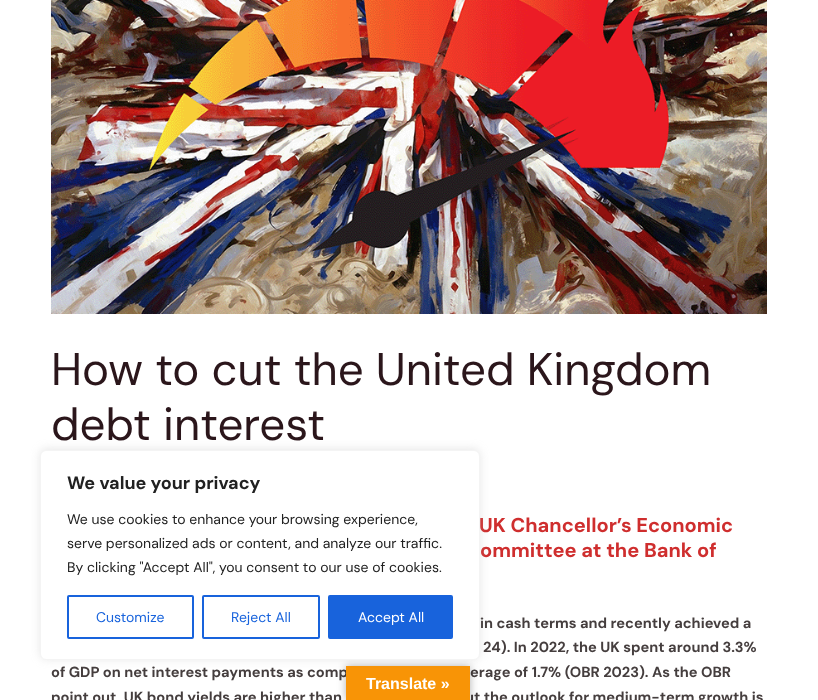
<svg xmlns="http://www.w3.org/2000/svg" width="818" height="700">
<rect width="100%" height="100%" fill="#fff"/>
<image x="51" y="0" width="716" height="314" href="media/1.png"/>
<text x="51" y="385" style="font-family:DM Sans;font-size:45.6px;fill:#2b161b">How to cut the United Kingdom</text>
<text x="51" y="440" style="font-family:DM Sans;font-size:45.6px;fill:#2b161b">debt interest</text>
<text x="479" y="532" style="font-family:DM Sans;font-size:20px;font-weight:bold;fill:#cf2e2e">UK Chancellor’s Economic</text>
<text x="480" y="557" style="font-family:DM Sans;font-size:20px;font-weight:bold;fill:#cf2e2e">ommittee at the Bank of</text>
<text x="480" y="628" style="font-family:DM Sans;font-size:14.6px;font-weight:bold;fill:#453e3e">in cash terms and recently achieved a</text>
<text x="483" y="652" style="font-family:DM Sans;font-size:14.6px;font-weight:bold;fill:#453e3e">24). In 2022, the UK spent around 3.3%</text>
<text x="51" y="677" style="font-family:DM Sans;font-size:14.6px;font-weight:bold;fill:#453e3e">of GDP on net interest payments as comp</text>
<text x="470" y="677" style="font-family:DM Sans;font-size:14.6px;font-weight:bold;fill:#453e3e">erage of 1.7% (OBR 2023). As the OBR</text>
<text x="51" y="702" style="font-family:DM Sans;font-size:14.6px;font-weight:bold;fill:#453e3e">point out, UK bond yields are higher than</text>
<text x="465" y="702" style="font-family:DM Sans;font-size:14.6px;font-weight:bold;fill:#453e3e">ut the outlook for medium-term growth is</text>
<rect x="346" y="666" width="124" height="34" fill="#0000004d" filter="blur(4.5px)"/>
<rect x="346" y="666" width="124" height="34" fill="#f89406"/>
<rect x="40" y="449" width="440" height="210" rx="6" fill="#acabab4d" filter="blur(5px)"/>
<rect x="40.5" y="450.5" width="439" height="209" rx="5.5" fill="#fff" stroke="#f4f4f4"/>
<text x="67" y="489" style="font-family:DM Sans;font-size:18px;font-weight:bold;fill:#212121">We value your privacy</text>
<text x="67" y="524" style="font-family:DM Sans;font-size:14px;fill:#212121">We use cookies to enhance your browsing experience,</text>
<text x="67" y="548" style="font-family:DM Sans;font-size:14px;fill:#212121">serve personalized ads or content, and analyze our traffic.</text>
<text x="67" y="572" style="font-family:DM Sans;font-size:14px;fill:#212121">By clicking "Accept All", you consent to our use of cookies.</text>
<rect x="68" y="596" width="125" height="42" rx="1" fill="none" stroke="#1863dc" stroke-width="2"/>
<text x="96" y="622" style="font-family:DM Sans;font-size:14px;fill:#1863dc">Customize</text>
<rect x="203" y="596" width="116" height="42" rx="1" fill="none" stroke="#1863dc" stroke-width="2"/>
<text x="231" y="622" style="font-family:DM Sans;font-size:14px;fill:#1863dc">Reject All</text>
<rect x="329" y="596" width="123" height="42" rx="1" fill="#1863dc" stroke="#1863dc" stroke-width="2"/>
<text x="358" y="622" style="font-family:DM Sans;font-size:14px;fill:#fff">Accept All</text>
<text x="366" y="689" style="font-family:Liberation Sans;font-size:16px;font-weight:bold;fill:#fff">Translate »</text>
</svg>
